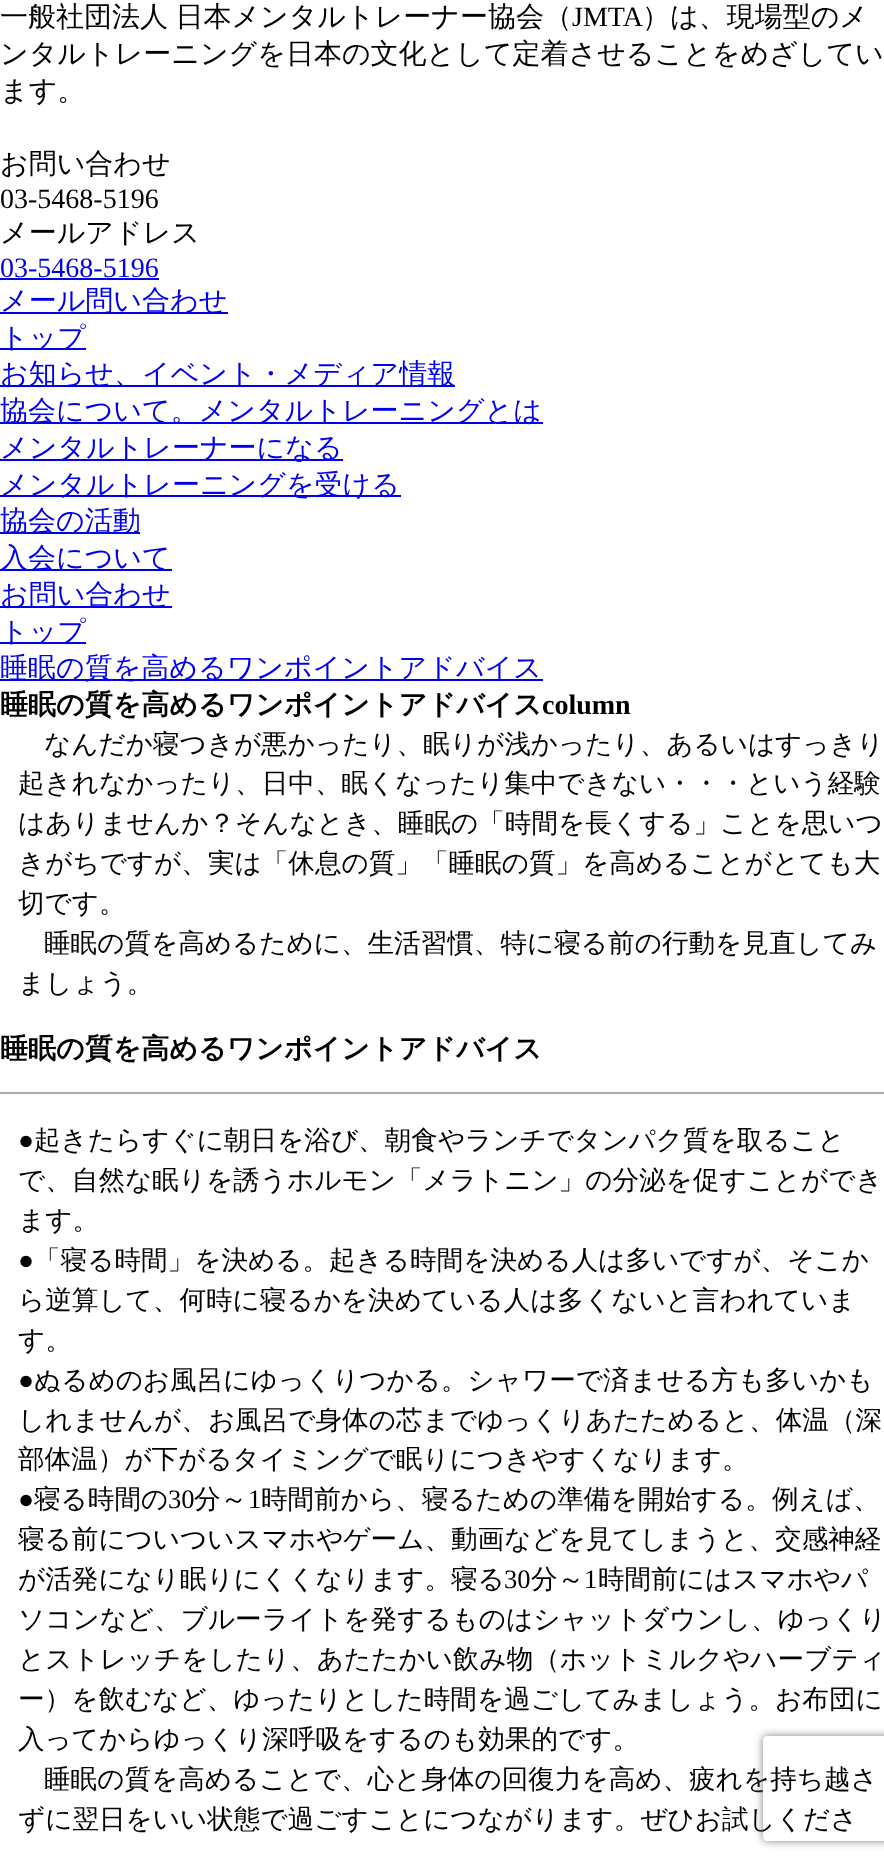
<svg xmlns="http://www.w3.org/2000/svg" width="884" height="1865">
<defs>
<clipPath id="clip1"><path d="M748 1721h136v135h-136zm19 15h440c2 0 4 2 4 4v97c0 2-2 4-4 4h-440c-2 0-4-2-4-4v-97c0-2 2-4 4-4z" clip-rule="evenodd"/></clipPath>
</defs>
<rect width="100%" height="100%" fill="#fff"/>
<text x="0" y="26" word-spacing="-1" style="font-family:WenQuanYi Zen Hei;font-size:28px;font-weight:500;fill:#000">一般社団法人 日本メンタルトレーナー協会（</text>
<text x="572" y="26" style="font-family:Liberation Serif;font-size:28px;fill:#000">JMTA</text>
<text x="642" y="26" style="font-family:WenQuanYi Zen Hei;font-size:28px;font-weight:500;fill:#000">）は、現場型のメ</text>
<text x="0" y="63" style="font-family:WenQuanYi Zen Hei;font-size:28px;font-weight:500;fill:#000">ンタルトレーニングを日本の文化として定着させることをめざしてい</text>
<text x="0" y="100" style="font-family:WenQuanYi Zen Hei;font-size:28px;font-weight:500;fill:#000">ます。</text>
<text x="0" y="173" style="font-family:WenQuanYi Zen Hei;font-size:28px;font-weight:500;fill:#000">お問い合わせ</text>
<text x="0" y="208" style="font-family:Liberation Serif;font-size:28px;fill:#000">03-5468-5196</text>
<text x="0" y="242" style="font-family:WenQuanYi Zen Hei;font-size:28px;font-weight:500;fill:#000">メールアドレス</text>
<text x="0" y="277" style="font-family:Liberation Serif;font-size:28px;fill:#00e">03-5468-5196</text>
<rect y="278" width="159" height="2" fill="#00e"/>
<rect y="312" width="228" height="2" fill="#00e"/>
<text x="0" y="310" style="font-family:WenQuanYi Zen Hei;font-size:28px;font-weight:500;fill:#00e">メール問い合わせ</text>
<rect y="348" width="86" height="2" fill="#00e"/>
<text x="0" y="347" style="font-family:WenQuanYi Zen Hei;font-size:28px;font-weight:500;fill:#00e">トップ</text>
<rect y="385" width="455" height="2" fill="#00e"/>
<text x="0" y="383" style="font-family:WenQuanYi Zen Hei;font-size:28px;font-weight:500;fill:#00e">お知らせ、イベント・メディア情報</text>
<rect y="422" width="543" height="2" fill="#00e"/>
<text x="0" y="420" style="font-family:WenQuanYi Zen Hei;font-size:28px;font-weight:500;fill:#00e">協会について。メンタルトレーニングとは</text>
<rect y="459" width="343" height="2" fill="#00e"/>
<text x="0" y="457" style="font-family:WenQuanYi Zen Hei;font-size:28px;font-weight:500;fill:#00e">メンタルトレーナーになる</text>
<rect y="495" width="401" height="2" fill="#00e"/>
<text x="0" y="494" style="font-family:WenQuanYi Zen Hei;font-size:28px;font-weight:500;fill:#00e">メンタルトレーニングを受ける</text>
<rect y="532" width="140" height="2" fill="#00e"/>
<text x="0" y="530" style="font-family:WenQuanYi Zen Hei;font-size:28px;font-weight:500;fill:#00e">協会の活動</text>
<rect y="569" width="172" height="2" fill="#00e"/>
<text x="0" y="567" style="font-family:WenQuanYi Zen Hei;font-size:28px;font-weight:500;fill:#00e">入会について</text>
<rect y="606" width="172" height="2" fill="#00e"/>
<text x="0" y="604" style="font-family:WenQuanYi Zen Hei;font-size:28px;font-weight:500;fill:#00e">お問い合わせ</text>
<rect y="642" width="86" height="2" fill="#00e"/>
<text x="0" y="641" style="font-family:WenQuanYi Zen Hei;font-size:28px;font-weight:500;fill:#00e">トップ</text>
<rect y="679" width="543" height="2" fill="#00e"/>
<text x="0" y="677" style="font-family:WenQuanYi Zen Hei;font-size:28px;font-weight:500;fill:#00e">睡眠の質を高めるワンポイントアドバイス</text>
<text x="0" y="714" style="font-family:WenQuanYi Zen Hei;font-size:28px;font-weight:bold;fill:#000">睡眠の質を高めるワンポイントアドバイス</text>
<text x="542" y="714" style="font-family:Liberation Serif;font-size:28px;font-weight:bold;fill:#000">column</text>
<text x="44" y="753" style="font-family:WenQuanYi Zen Hei;font-size:26.6px;font-weight:500;fill:#000">なんだか寝つきが悪かったり、眠りが浅かったり、あるいはすっきり</text>
<text x="18" y="792" style="font-family:WenQuanYi Zen Hei;font-size:26.6px;font-weight:500;fill:#000">起きれなかったり、日中、眠くなったり集中できない・・・という経験</text>
<text x="18" y="832" style="font-family:WenQuanYi Zen Hei;font-size:26.6px;font-weight:500;fill:#000">はありませんか？そんなとき、睡眠の「時間を長くする」ことを思いつ</text>
<text x="18" y="872" style="font-family:WenQuanYi Zen Hei;font-size:26.6px;font-weight:500;fill:#000">きがちですが、実は「休息の質」「睡眠の質」を高めることがとても大</text>
<text x="18" y="912" style="font-family:WenQuanYi Zen Hei;font-size:26.6px;font-weight:500;fill:#000">切です。</text>
<text x="44" y="952" style="font-family:WenQuanYi Zen Hei;font-size:26.6px;font-weight:500;fill:#000">睡眠の質を高めるために、生活習慣、特に寝る前の行動を見直してみ</text>
<text x="18" y="992" style="font-family:WenQuanYi Zen Hei;font-size:26.6px;font-weight:500;fill:#000">ましょう。</text>
<rect y="1092" width="884" height="2" fill="#aaa"/>
<text x="0" y="1058" style="font-family:WenQuanYi Zen Hei;font-size:28px;font-weight:bold;fill:#000">睡眠の質を高めるワンポイントアドバイス</text>
<text x="18" y="1149" style="font-family:Liberation Serif;font-size:26.6px;fill:#000">●</text>
<text x="34" y="1149" style="font-family:WenQuanYi Zen Hei;font-size:26.6px;font-weight:500;fill:#000">起きたらすぐに朝日を浴び、朝食やランチでタンパク質を取ること</text>
<text x="18" y="1189" style="font-family:WenQuanYi Zen Hei;font-size:26.6px;font-weight:500;fill:#000">で、自然な眠りを誘うホルモン「メラトニン」の分泌を促すことができ</text>
<text x="18" y="1229" style="font-family:WenQuanYi Zen Hei;font-size:26.6px;font-weight:500;fill:#000">ます。</text>
<text x="18" y="1269" style="font-family:Liberation Serif;font-size:26.6px;fill:#000">●</text>
<text x="34" y="1269" style="font-family:WenQuanYi Zen Hei;font-size:26.6px;font-weight:500;fill:#000">「寝る時間」を決める。起きる時間を決める人は多いですが、そこか</text>
<text x="18" y="1309" style="font-family:WenQuanYi Zen Hei;font-size:26.6px;font-weight:500;fill:#000">ら逆算して、何時に寝るかを決めている人は多くないと言われていま</text>
<text x="18" y="1349" style="font-family:WenQuanYi Zen Hei;font-size:26.6px;font-weight:500;fill:#000">す。</text>
<text x="18" y="1389" style="font-family:Liberation Serif;font-size:26.6px;fill:#000">●</text>
<text x="34" y="1389" style="font-family:WenQuanYi Zen Hei;font-size:26.6px;font-weight:500;fill:#000">ぬるめのお風呂にゆっくりつかる。シャワーで済ませる方も多いかも</text>
<text x="18" y="1429" style="font-family:WenQuanYi Zen Hei;font-size:26.6px;font-weight:500;fill:#000">しれませんが、お風呂で身体の芯までゆっくりあたためると、体温（深</text>
<text x="18" y="1468" style="font-family:WenQuanYi Zen Hei;font-size:26.6px;font-weight:500;fill:#000">部体温）が下がるタイミングで眠りにつきやすくなります。</text>
<text x="18" y="1508" style="font-family:Liberation Serif;font-size:26.6px;fill:#000">●</text>
<text x="34" y="1508" style="font-family:WenQuanYi Zen Hei;font-size:26.6px;font-weight:500;fill:#000">寝る時間の</text>
<text x="168" y="1508" style="font-family:Liberation Serif;font-size:26.6px;fill:#000">30</text>
<text x="194" y="1508" style="font-family:WenQuanYi Zen Hei;font-size:26.6px;font-weight:500;fill:#000">分～</text>
<text x="248" y="1508" style="font-family:Liberation Serif;font-size:26.6px;fill:#000">1</text>
<text x="261" y="1508" style="font-family:WenQuanYi Zen Hei;font-size:26.6px;font-weight:500;fill:#000">時間前から、寝るための準備を開始する。例えば、</text>
<text x="18" y="1548" style="font-family:WenQuanYi Zen Hei;font-size:26.6px;font-weight:500;fill:#000">寝る前についついスマホやゲーム、動画などを見てしまうと、交感神経</text>
<text x="18" y="1588" style="font-family:WenQuanYi Zen Hei;font-size:26.6px;font-weight:500;fill:#000">が活発になり眠りにくくなります。寝る</text>
<text x="504" y="1588" style="font-family:Liberation Serif;font-size:26.6px;fill:#000">30</text>
<text x="531" y="1588" style="font-family:WenQuanYi Zen Hei;font-size:26.6px;font-weight:500;fill:#000">分～</text>
<text x="584" y="1588" style="font-family:Liberation Serif;font-size:26.6px;fill:#000">1</text>
<text x="598" y="1588" style="font-family:WenQuanYi Zen Hei;font-size:26.6px;font-weight:500;fill:#000">時間前にはスマホやパ</text>
<text x="18" y="1628" style="font-family:WenQuanYi Zen Hei;font-size:26.6px;font-weight:500;fill:#000">ソコンなど、ブルーライトを発するものはシャットダウンし、ゆっくり</text>
<text x="18" y="1668" style="font-family:WenQuanYi Zen Hei;font-size:26.6px;font-weight:500;fill:#000">とストレッチをしたり、あたたかい飲み物（ホットミルクやハーブティ</text>
<text x="18" y="1708" style="font-family:WenQuanYi Zen Hei;font-size:26.6px;font-weight:500;fill:#000">ー）を飲むなど、ゆったりとした時間を過ごしてみましょう。お布団に</text>
<text x="18" y="1748" style="font-family:WenQuanYi Zen Hei;font-size:26.6px;font-weight:500;fill:#000">入ってからゆっくり深呼吸をするのも効果的です。</text>
<text x="44" y="1788" style="font-family:WenQuanYi Zen Hei;font-size:26.6px;font-weight:500;fill:#000">睡眠の質を高めることで、心と身体の回復力を高め、疲れを持ち越さ</text>
<text x="18" y="1828" style="font-family:WenQuanYi Zen Hei;font-size:26.6px;font-weight:500;fill:#000">ずに翌日をいい状態で過ごすことにつながります。ぜひお試しくださ</text>
<g clip-path="url(#clip1)">
<rect x="763" y="1736" width="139" height="105" rx="4" fill="#808080" filter="blur(4.5px)"/>
</g>
</svg>
